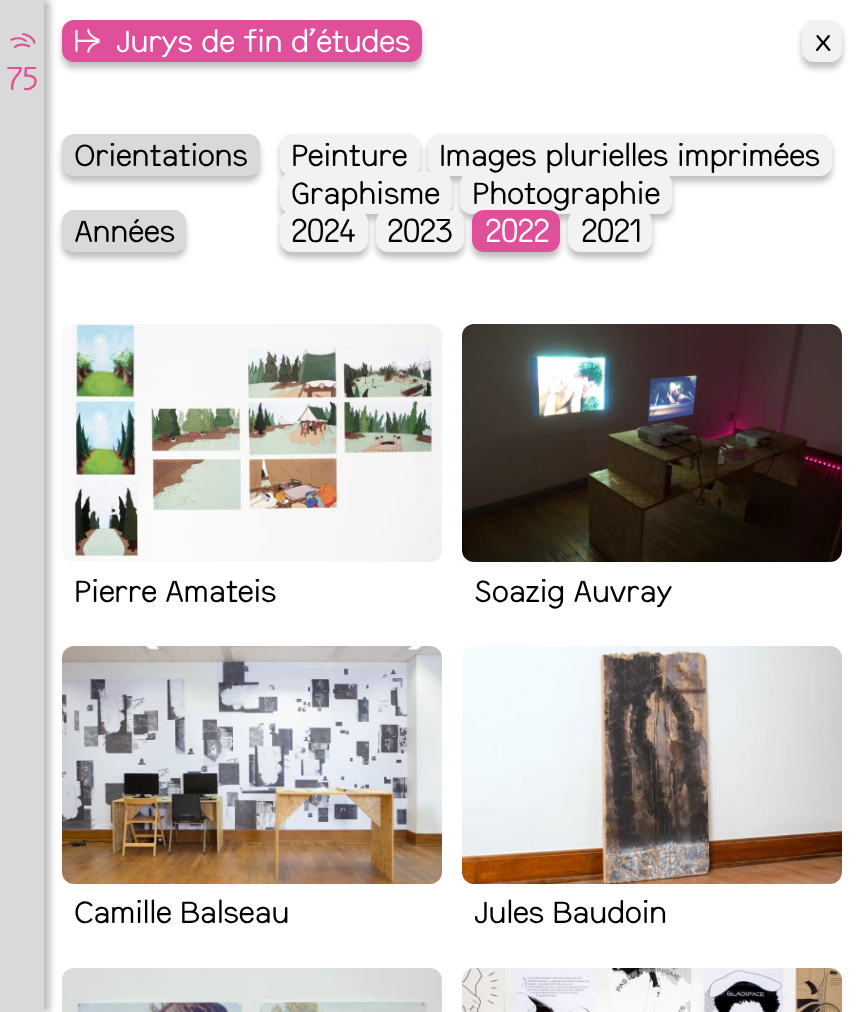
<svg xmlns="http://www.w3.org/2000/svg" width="862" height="1012">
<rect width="100%" height="100%" fill="#fff"/>
<rect x="6" width="44" height="1012" fill="#00000040" filter="blur(3px)"/>
<rect width="44" height="1012" fill="#d9d9d9"/>
<text x="9" y="52" style="font-family:'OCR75';font-size:32px;letter-spacing:-0.95px;fill:#df4f9a">⇶</text>
<text x="6" y="90" style="font-family:'OCR75';font-size:32px;letter-spacing:-0.95px;fill:#df4f9a">75</text>
<rect x="62" y="26" width="360" height="42" rx="12" fill="#00000040" filter="blur(3px)"/>
<rect x="62" y="20" width="360" height="42" rx="12" fill="#df4f9a"/>
<text x="74" y="52" style="font-family:'OCR75';font-size:32px;letter-spacing:-0.95px;fill:#f2f2f2">↦</text>
<text x="116" y="52" style="font-family:'OCR75';font-size:32px;letter-spacing:-0.95px;fill:#fff">Jurys de fin d’études</text>
<rect x="802" y="26" width="40" height="42" rx="12" fill="#00000040" filter="blur(3px)"/>
<rect x="802" y="20" width="40" height="42" rx="12" fill="#f2f2f2"/>
<text x="815" y="51" style="font-family:'OCR75';font-size:32px;letter-spacing:-0.95px;fill:#000">x</text>
<rect x="62" y="140" width="198" height="42" rx="12" fill="#00000040" filter="blur(3px)"/>
<rect x="62" y="134" width="198" height="42" rx="12" fill="#d9d9d9"/>
<text x="74" y="166" style="font-family:'OCR75';font-size:32px;letter-spacing:-0.95px;fill:#000">Orientations</text>
<rect x="280" y="140" width="140" height="42" rx="12" fill="#00000040" filter="blur(3px)"/>
<rect x="280" y="134" width="140" height="42" rx="12" fill="#f2f2f2"/>
<text x="291" y="166" style="font-family:'OCR75';font-size:32px;letter-spacing:-0.95px;fill:#000">Peinture</text>
<rect x="428" y="140" width="404" height="42" rx="12" fill="#00000040" filter="blur(3px)"/>
<rect x="428" y="134" width="404" height="42" rx="12" fill="#f2f2f2"/>
<rect x="280" y="178" width="172" height="42" rx="12" fill="#00000040" filter="blur(3px)"/>
<rect x="280" y="172" width="172" height="42" rx="12" fill="#f2f2f2"/>
<rect x="460" y="178" width="212" height="42" rx="12" fill="#00000040" filter="blur(3px)"/>
<rect x="460" y="172" width="212" height="42" rx="12" fill="#f2f2f2"/>
<text x="439" y="166" style="font-family:'OCR75';font-size:32px;letter-spacing:-0.95px;fill:#000">Images plurielles imprimées</text>
<rect x="280" y="216" width="88" height="42" rx="12" fill="#00000040" filter="blur(3px)"/>
<rect x="280" y="210" width="88" height="42" rx="12" fill="#f2f2f2"/>
<rect x="376" y="216" width="88" height="42" rx="12" fill="#00000040" filter="blur(3px)"/>
<rect x="376" y="210" width="88" height="42" rx="12" fill="#f2f2f2"/>
<text x="291" y="204" style="font-family:'OCR75';font-size:32px;letter-spacing:-0.95px;fill:#000">Graphisme</text>
<rect x="568" y="216" width="84" height="42" rx="12" fill="#00000040" filter="blur(3px)"/>
<rect x="568" y="210" width="84" height="42" rx="12" fill="#f2f2f2"/>
<text x="472" y="204" style="font-family:'OCR75';font-size:32px;letter-spacing:-0.95px;fill:#000">Photographie</text>
<rect x="62" y="216" width="124" height="42" rx="12" fill="#00000040" filter="blur(3px)"/>
<rect x="62" y="210" width="124" height="42" rx="12" fill="#d9d9d9"/>
<text x="74" y="242" style="font-family:'OCR75';font-size:32px;letter-spacing:-0.95px;fill:#000">Années</text>
<text x="291" y="242" style="font-family:'OCR75';font-size:32px;letter-spacing:-0.95px;fill:#000">2024</text>
<text x="387" y="242" style="font-family:'OCR75';font-size:32px;letter-spacing:-0.95px;fill:#000">2023</text>
<rect x="472" y="216" width="88" height="42" rx="12" fill="#00000040" filter="blur(3px)"/>
<rect x="472" y="210" width="88" height="42" rx="12" fill="#df4f9a"/>
<text x="485" y="242" style="font-family:'OCR75';font-size:32px;letter-spacing:-0.95px;fill:#fff">2022</text>
<text x="581" y="242" style="font-family:'OCR75';font-size:32px;letter-spacing:-0.95px;fill:#000">2021</text>
<rect x="62" y="324" width="380" height="238" rx="12" fill="#f9f9f9"/>
<image x="72" y="324" width="370" height="238" href="media/1.png"/>
<text x="74" y="602" style="font-family:'OCR75';font-size:32px;letter-spacing:-0.95px;fill:#000">Pierre Amateis</text>
<image x="462" y="324" width="380" height="238" href="media/2.png"/>
<text x="474" y="602" style="font-family:'OCR75';font-size:32px;letter-spacing:-0.95px;fill:#000">Soazig Auvray</text>
<image x="62" y="646" width="380" height="238" href="media/3.png"/>
<text x="74" y="923" style="font-family:'OCR75';font-size:32px;letter-spacing:-0.95px;fill:#000">Camille Balseau</text>
<image x="462" y="646" width="380" height="238" href="media/4.png"/>
<text x="474" y="923" style="font-family:'OCR75';font-size:32px;letter-spacing:-0.95px;fill:#000">Jules Baudoin</text>
<image x="62" y="968" width="380" height="44" href="media/5.png"/>
<image x="462" y="968" width="380" height="44" href="media/6.png"/>
</svg>
